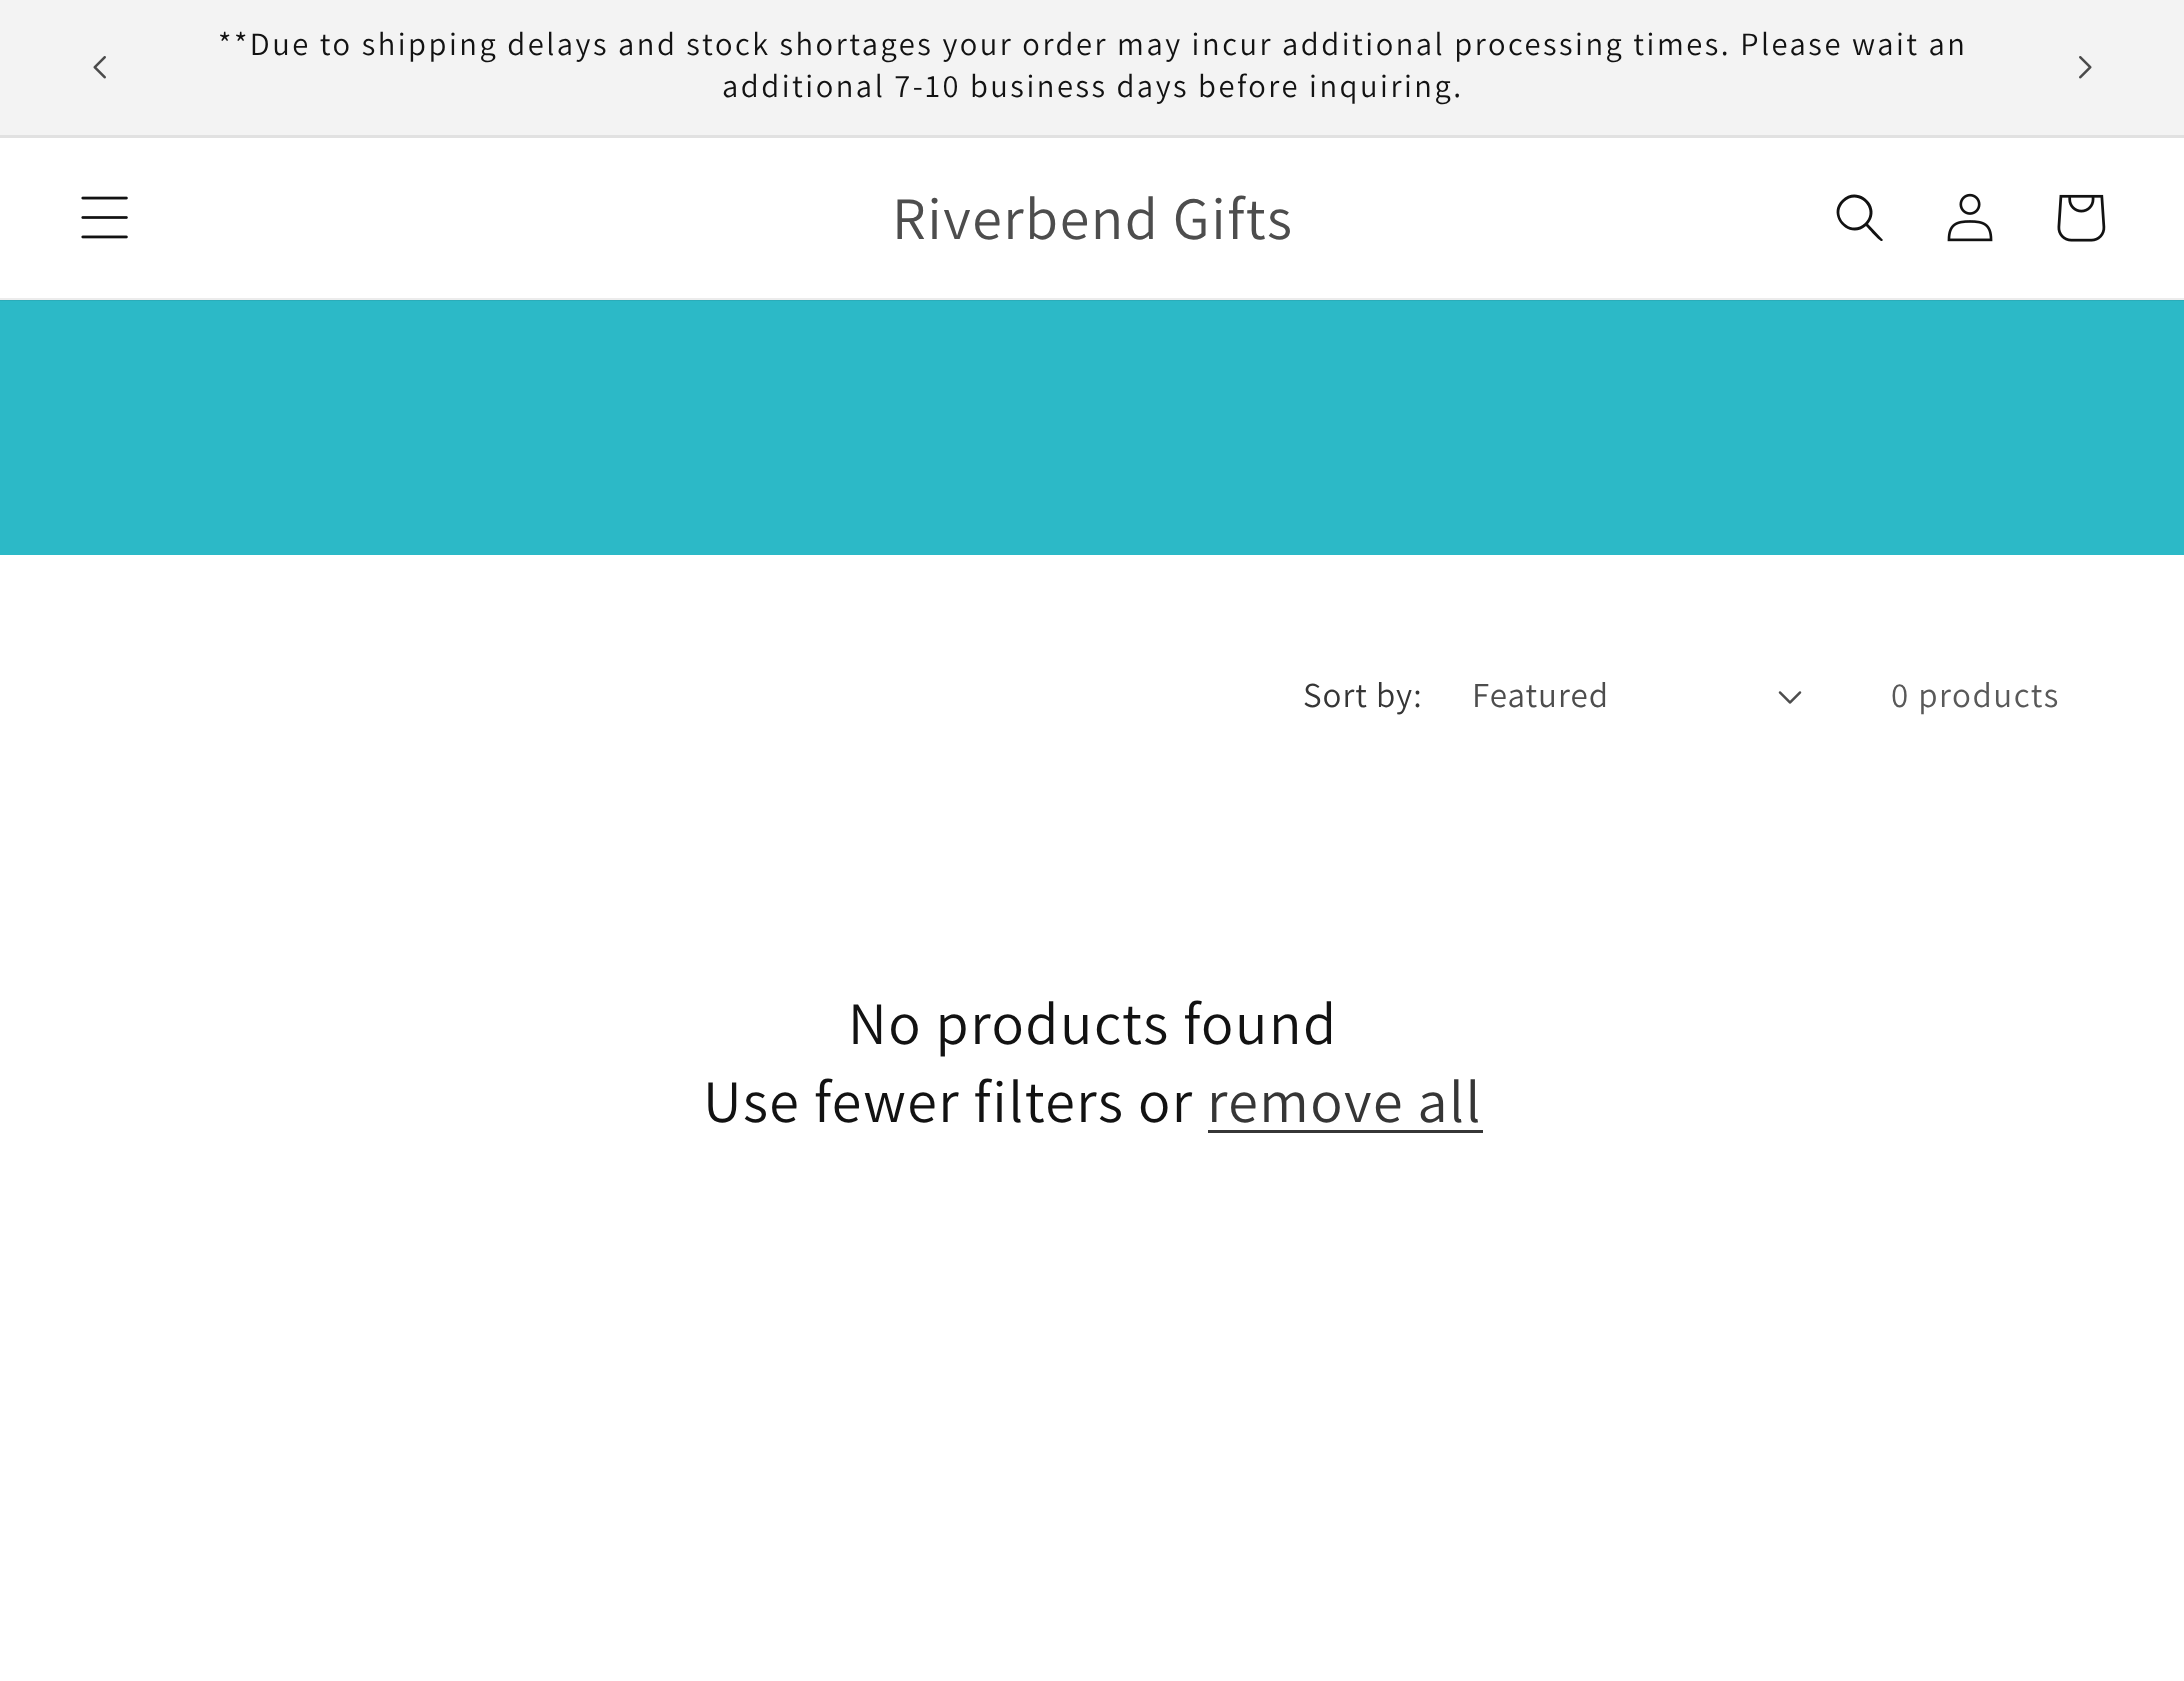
<svg xmlns="http://www.w3.org/2000/svg" width="2184" height="1681">
<rect width="100%" height="100%" fill="#fff"/>
<rect y="298" width="2184" height="2" fill="#ececec"/>
<rect width="2184" height="135" fill="#f3f3f3"/>
<rect y="135" width="2184" height="3" fill="#e1e1e1"/>
<image x="93" y="56" width="13" height="23" href="media/1.png"/>
<text x="218" y="55" style="font-family:Assistant;font-size:32.5px;letter-spacing:2.5px;fill:#121212">**Due to shipping delays and stock shortages your order may incur additional processing times. Please wait an</text>
<text x="722" y="97" style="font-family:Assistant;font-size:32.5px;letter-spacing:2.5px;fill:#121212">additional 7-10 business days before inquiring.</text>
<image x="2079" y="56" width="13" height="23" href="media/2.png"/>
<image x="81" y="196" width="47" height="43" href="media/3.png"/>
<text x="892" y="239" style="font-family:Assistant;font-size:60px;letter-spacing:1.5px;fill:#4d4d4d">Riverbend Gifts</text>
<path d="M1865 223c-14 14-35-7-21-21c14-14 35 7 21 21zm1 3c-17 15-40-11-24-26c16-16 41 7 26 24l15 16l-1 1c-2 1-14-13-16-15z" fill="#121212" fill-rule="evenodd"/>
<image x="1947" y="193" width="46" height="49" href="media/4.png"/>
<image x="2057" y="194" width="49" height="48" href="media/5.png"/>
<rect y="301" width="2184" height="254" fill="#2cb9c7"/>
<rect y="300" width="2184" height="1" fill="#2aacb9"/>
<text x="1303" y="707" style="font-family:Assistant;font-size:35px;letter-spacing:1px;fill:#363636">Sort by:</text>
<text x="1472" y="707" style="font-family:Assistant;font-size:35px;letter-spacing:1px;fill:#4d4d4d">Featured</text>
<image x="1778" y="691" width="24" height="13" href="media/6.png"/>
<text x="1891" y="707" style="font-family:Assistant;font-size:35px;letter-spacing:1.5px;fill:#595959">0 products</text>
<text x="848" y="1044" style="font-family:Assistant;font-size:60px;letter-spacing:1.5px;fill:#121212">No products found</text>
<text x="703" y="1122" style="font-family:Assistant;font-size:60px;letter-spacing:1.5px;fill:#121212">Use fewer filters or</text>
<text x="1207" y="1122" style="font-family:Assistant;font-size:60px;letter-spacing:1.5px;fill:#363636">remove all</text>
<rect x="1208" y="1130" width="275" height="3" fill="#363636"/>
</svg>
